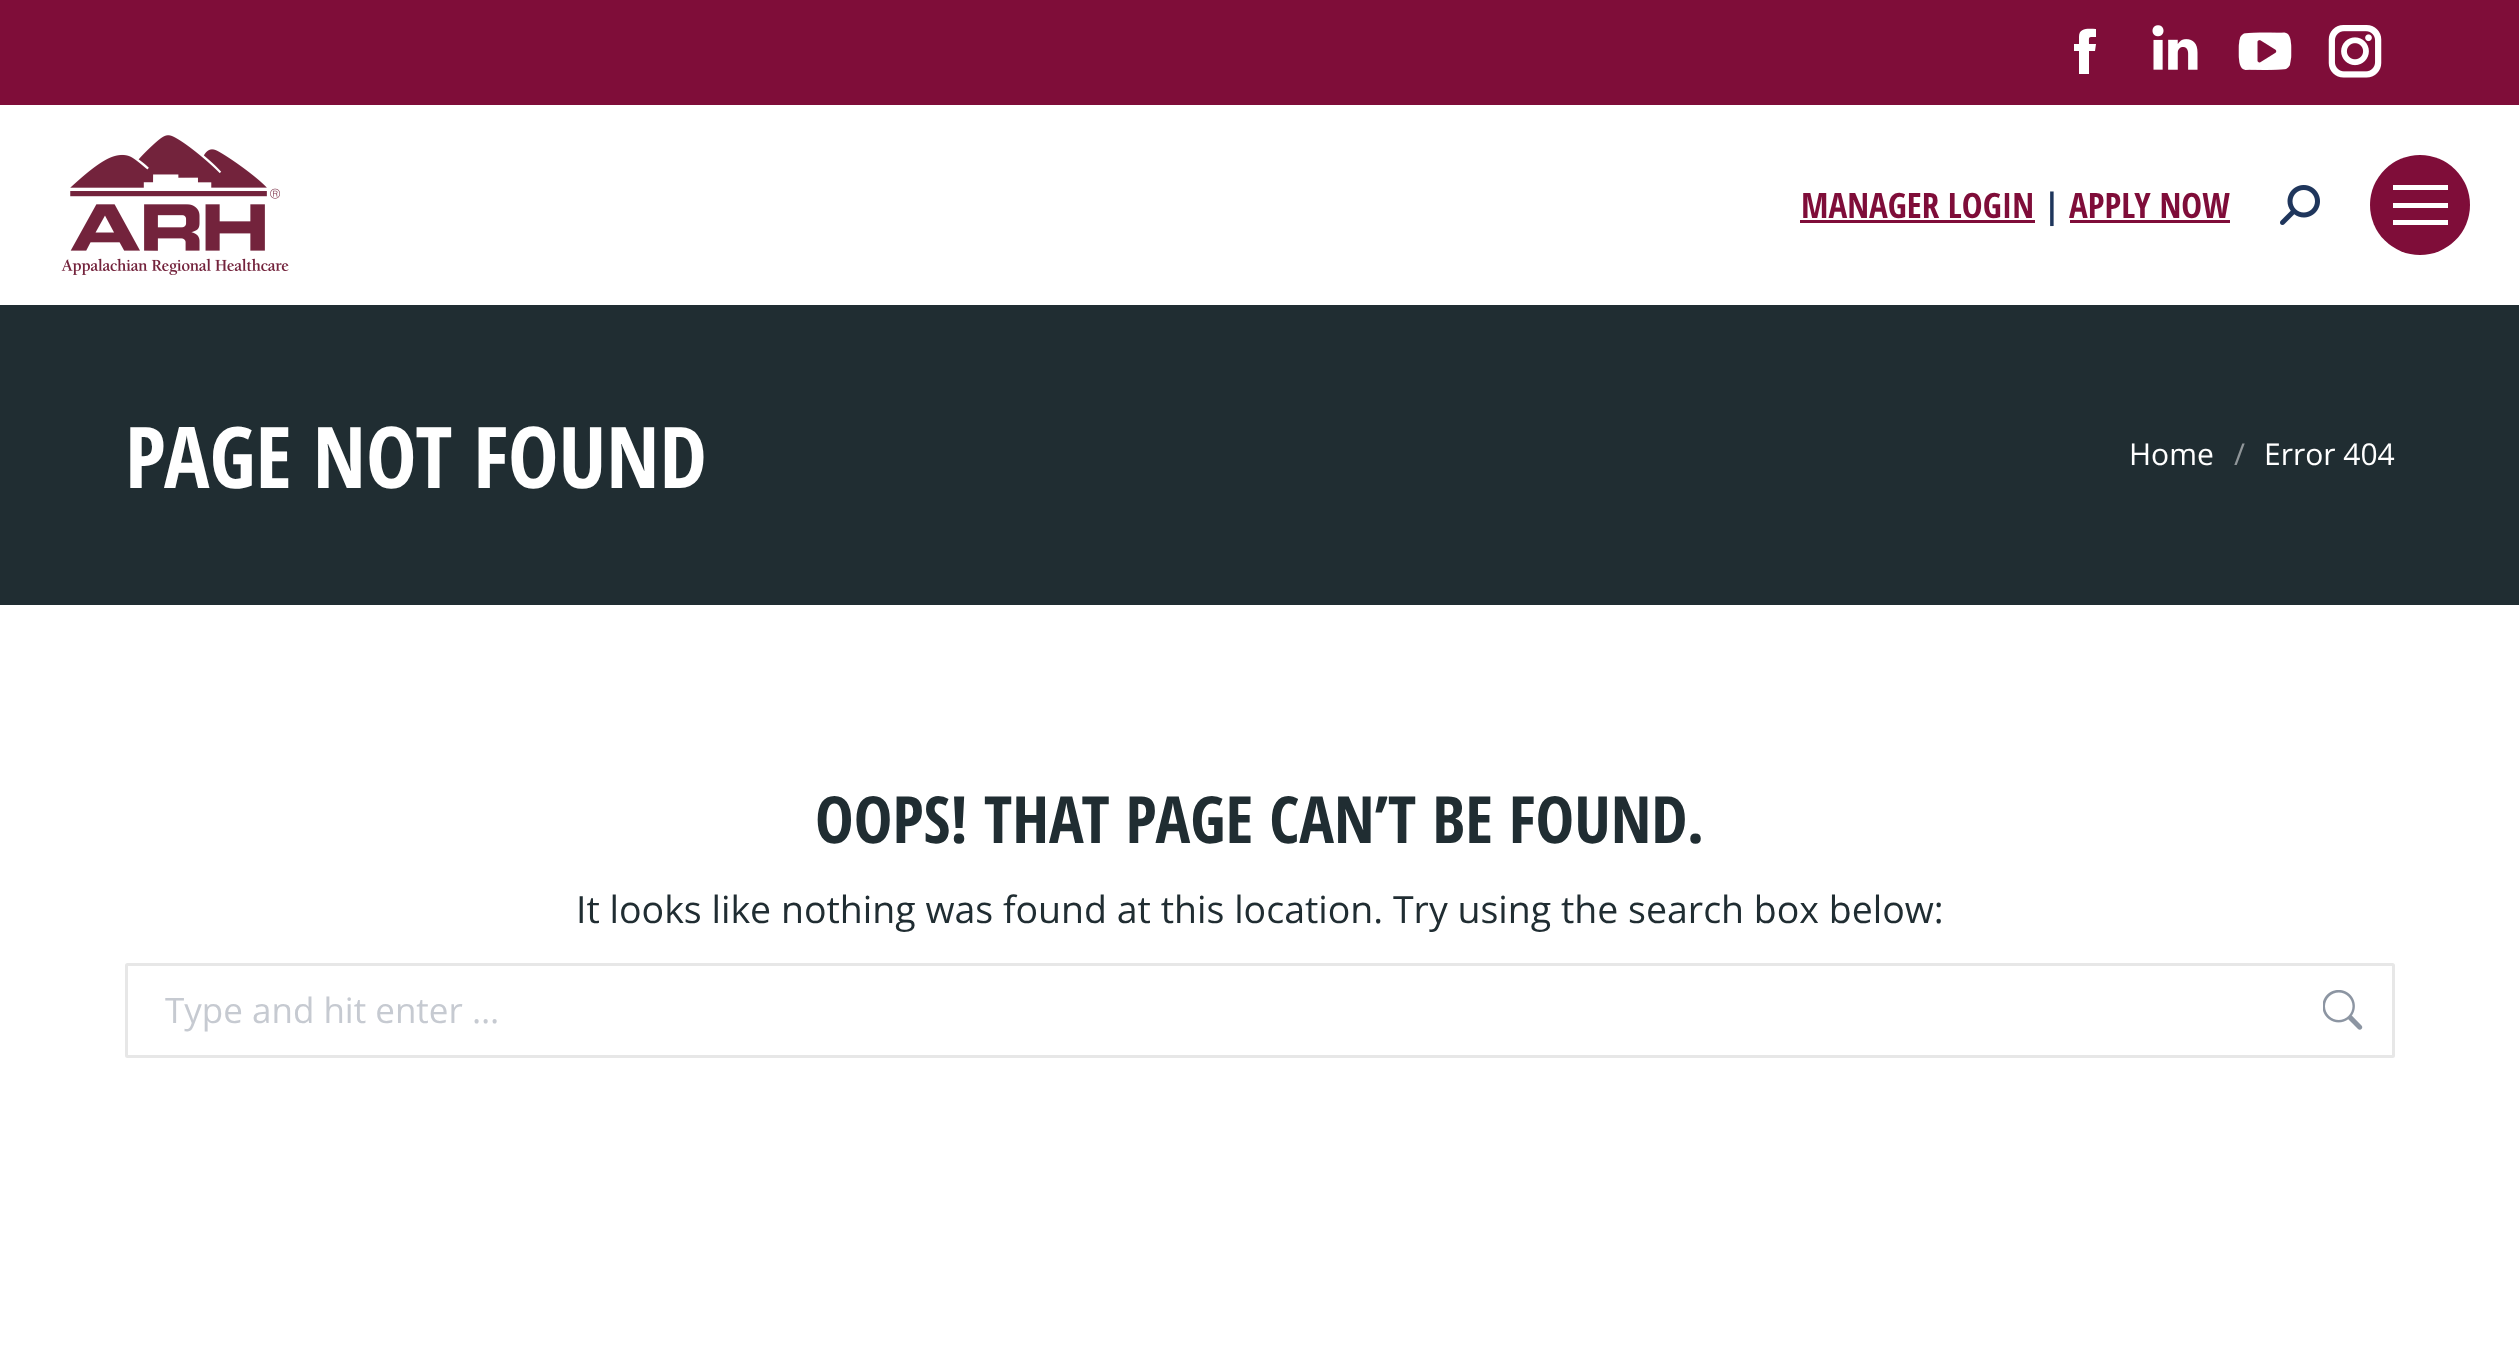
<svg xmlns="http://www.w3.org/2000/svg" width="2519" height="1347">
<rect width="100%" height="100%" fill="#fff"/>
<rect width="2519" height="105" fill="#7f0d39"/>
<path d="M2079 37c0-10 10-8 17-8v8c-8 0-7-1-7 7h7l-1 7h-6v23h-10v-23h-5v-7h5z" fill="#fff"/>
<image x="2152" y="25" width="46" height="45" href="media/1.png"/>
<image x="2238" y="32" width="54" height="38" href="media/2.png"/>
<image x="2328" y="25" width="54" height="53" href="media/3.png"/>
<image x="61" y="135" width="228" height="140" href="media/4.png"/>
<text x="1801" y="218" style="font-family:Open Sans Condensed;font-size:35px;font-weight:bold;fill:#7f0d39">MANAGER LOGIN</text>
<rect x="1800" y="220" width="235" height="3" fill="#7f0d39"/>
<text x="2043" y="218" style="font-family:Open Sans Condensed;font-size:35px;font-weight:bold;fill:#1f365c">|</text>
<text x="2069" y="218" style="font-family:Open Sans Condensed;font-size:35px;font-weight:bold;fill:#7f0d39">APPLY NOW</text>
<rect x="2070" y="220" width="160" height="3" fill="#7f0d39"/>
<image x="2280" y="185" width="40" height="40" href="media/5.png"/>
<circle cx="2420" cy="205" r="50" fill="#7f0d39"/>
<rect x="2393" y="185" width="55" height="5" fill="#fff"/>
<rect x="2393" y="203" width="55" height="5" fill="#fff"/>
<rect x="2393" y="220" width="55" height="5" fill="#fff"/>
<rect y="305" width="2519" height="300" fill="#202d32"/>
<text x="125" y="488" style="font-family:Open Sans Condensed;font-size:85px;font-weight:bold;fill:#fff">PAGE NOT FOUND</text>
<text x="2129" y="465" style="font-family:Open Sans;font-size:30px;fill:#fff">Home</text>
<text x="2234" y="465" style="font-family:Open Sans;font-size:30px;fill:#909699">/</text>
<text x="2264" y="465" style="font-family:Open Sans;font-size:30px;fill:#fff">Error 404</text>
<text x="815" y="843" style="font-family:Open Sans Condensed;font-size:65px;font-weight:bold;fill:#202d32">OOPS! THAT PAGE CAN’T BE FOUND.</text>
<text x="576" y="923" style="font-family:Open Sans;font-size:37.5px;fill:#202d32">It looks like nothing was found at this location. Try using the search box below:</text>
<rect x="126.5" y="964.5" width="2267" height="92" rx="1" fill="none" stroke="#e7e7e7" stroke-width="3"/>
<text x="165" y="1023" style="font-family:Open Sans;font-size:35px;fill:#c6cad1">Type and hit enter …</text>
<image x="2323" y="990" width="40" height="40" href="media/6.png"/>
</svg>
